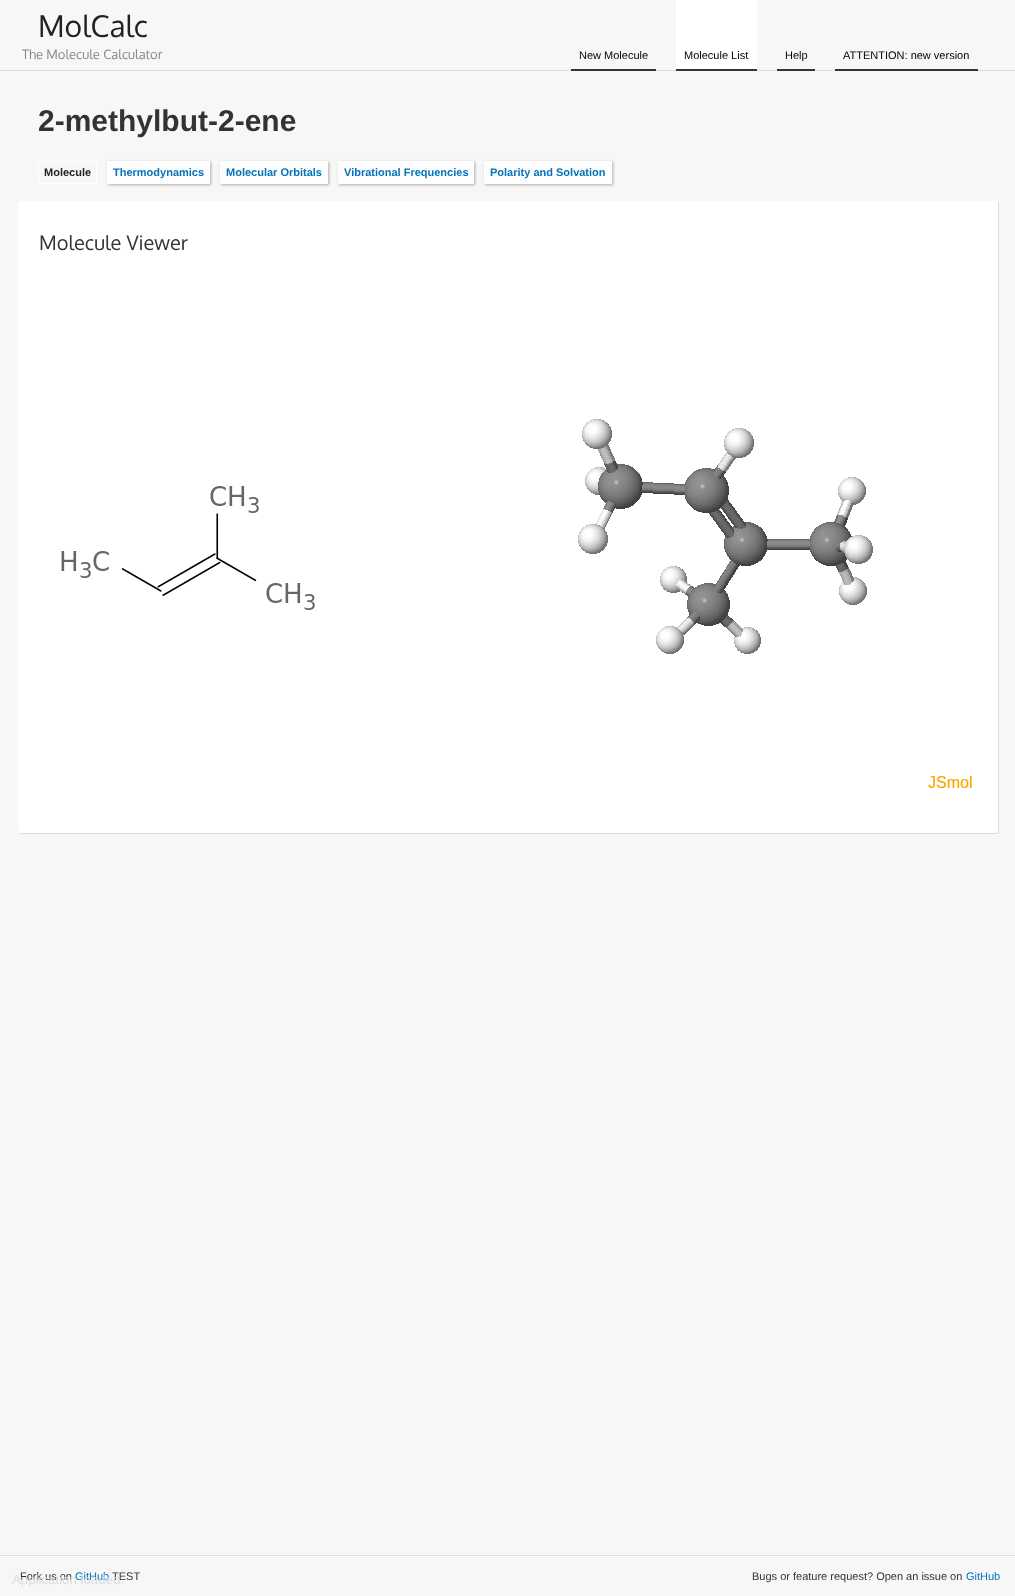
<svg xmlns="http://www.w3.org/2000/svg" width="1015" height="1596">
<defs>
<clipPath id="clip1"><path d="M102 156h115v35h-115zm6 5h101c.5 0 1 .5 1 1v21c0 .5-.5 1-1 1h-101c-.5 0-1-.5-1-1v-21c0-.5 .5-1 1-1z" clip-rule="evenodd"/></clipPath>
<clipPath id="clip2"><path d="M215 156h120v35h-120zm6 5h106c.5 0 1 .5 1 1v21c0 .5-.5 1-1 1h-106c-.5 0-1-.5-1-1v-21c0-.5 .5-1 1-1z" clip-rule="evenodd"/></clipPath>
<clipPath id="clip3"><path d="M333 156h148v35h-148zm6 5h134c.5 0 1 .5 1 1v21c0 .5-.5 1-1 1h-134c-.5 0-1-.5-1-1v-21c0-.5 .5-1 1-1z" clip-rule="evenodd"/></clipPath>
<clipPath id="clip4"><path d="M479 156h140v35h-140zm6 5h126c.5 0 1 .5 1 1v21c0 .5-.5 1-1 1h-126c-.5 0-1-.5-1-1v-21c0-.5 .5-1 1-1z" clip-rule="evenodd"/></clipPath>
</defs>
<rect width="100%" height="100%" fill="#f7f7f7"/>
<rect y="70" width="1015" height="1" fill="#ddd"/>
<text x="38" y="37" style="font-family:Oxygen;font-size:30px;fill:#222">MolCalc</text>
<text x="22" y="59" style="font-family:Oxygen;font-size:13px;fill:#888">The Molecule Calculator</text>
<rect x="571" y="69" width="85" height="2" fill="#333"/>
<text x="579" y="59" style="font-family:Liberation Sans;font-size:11px;fill:#000">New Molecule</text>
<rect x="676" width="81" height="69" fill="#fff"/>
<rect x="676" y="69" width="81" height="2" fill="#333"/>
<text x="684" y="59" style="font-family:Liberation Sans;font-size:11px;fill:#000">Molecule List</text>
<rect x="777" y="69" width="38" height="2" fill="#333"/>
<text x="785" y="59" style="font-family:Liberation Sans;font-size:11px;fill:#000">Help</text>
<rect x="835" y="69" width="143" height="2" fill="#333"/>
<text x="843" y="59" style="font-family:Liberation Sans;font-size:11px;fill:#000">ATTENTION: new version</text>
<text x="38" y="131" style="font-family:Liberation Sans;font-size:30px;font-weight:bold;fill:#333">2-methylbut-2-ene</text>
<rect x="38.5" y="161.5" width="58" height="22" rx="0.5" fill="none" stroke="#fff"/>
<text x="44" y="176" style="font-family:Liberation Sans;font-size:11px;font-weight:bold;fill:#222">Molecule</text>
<g clip-path="url(#clip1)">
<rect x="108" y="162" width="103" height="23" rx="1" fill="#0000004d" filter="blur(1.5px)"/>
</g>
<rect x="107.5" y="161.5" width="102" height="22" rx="0.5" fill="#ffffffbf" stroke="#fff"/>
<text x="113" y="176" style="font-family:Liberation Sans;font-size:11px;font-weight:bold;fill:#0373bb">Thermodynamics</text>
<g clip-path="url(#clip2)">
<rect x="221" y="162" width="108" height="23" rx="1" fill="#0000004d" filter="blur(1.5px)"/>
</g>
<rect x="220.5" y="161.5" width="107" height="22" rx="0.5" fill="#ffffffbf" stroke="#fff"/>
<text x="226" y="176" style="font-family:Liberation Sans;font-size:11px;font-weight:bold;fill:#0373bb">Molecular Orbitals</text>
<g clip-path="url(#clip3)">
<rect x="339" y="162" width="136" height="23" rx="1" fill="#0000004d" filter="blur(1.5px)"/>
</g>
<rect x="338.5" y="161.5" width="135" height="22" rx="0.5" fill="#ffffffbf" stroke="#fff"/>
<text x="344" y="176" style="font-family:Liberation Sans;font-size:11px;font-weight:bold;fill:#0373bb">Vibrational Frequencies</text>
<g clip-path="url(#clip4)">
<rect x="485" y="162" width="128" height="23" rx="1" fill="#0000004d" filter="blur(1.5px)"/>
</g>
<rect x="484.5" y="161.5" width="127" height="22" rx="0.5" fill="#ffffffbf" stroke="#fff"/>
<text x="490" y="176" style="font-family:Liberation Sans;font-size:11px;font-weight:bold;fill:#0373bb">Polarity and Solvation</text>
<path d="M19 833c0 1 1 1 2 1h976c1 0 2-1 2-2v-628c0-1 0-2-1-2v629c0 1-1 2-2 2z" fill="#dedede"/>
<rect x="18" y="201" width="980" height="632" rx="2" fill="#fff"/>
<text x="39" y="250" style="font-family:Oxygen;font-size:20px;fill:#333">Molecule Viewer</text>
<image x="61" y="486" width="254" height="124" href="media/1.png"/>
<image x="578" y="419" width="394" height="369" href="media/2.png"/>
<rect y="1555" width="1015" height="1" fill="#ddd"/>
<text x="20" y="1580" style="font-family:Liberation Sans;font-size:11px;fill:#333">Fork us on</text>
<text x="75" y="1580" style="font-family:Liberation Sans;font-size:11px;fill:#0373bb">GitHub</text>
<text x="112" y="1580" style="font-family:Liberation Sans;font-size:11px;fill:#333">TEST</text>
<text x="752" y="1580" style="font-family:Liberation Sans;font-size:11px;fill:#333">Bugs or feature request? Open an issue on</text>
<text x="966" y="1580" style="font-family:Liberation Sans;font-size:11px;fill:#0373bb">GitHub</text>
<text x="12" y="1584" style="font-family:Liberation Sans;font-size:13.25px;fill:#d8dee2">Application loaded.</text>
</svg>
